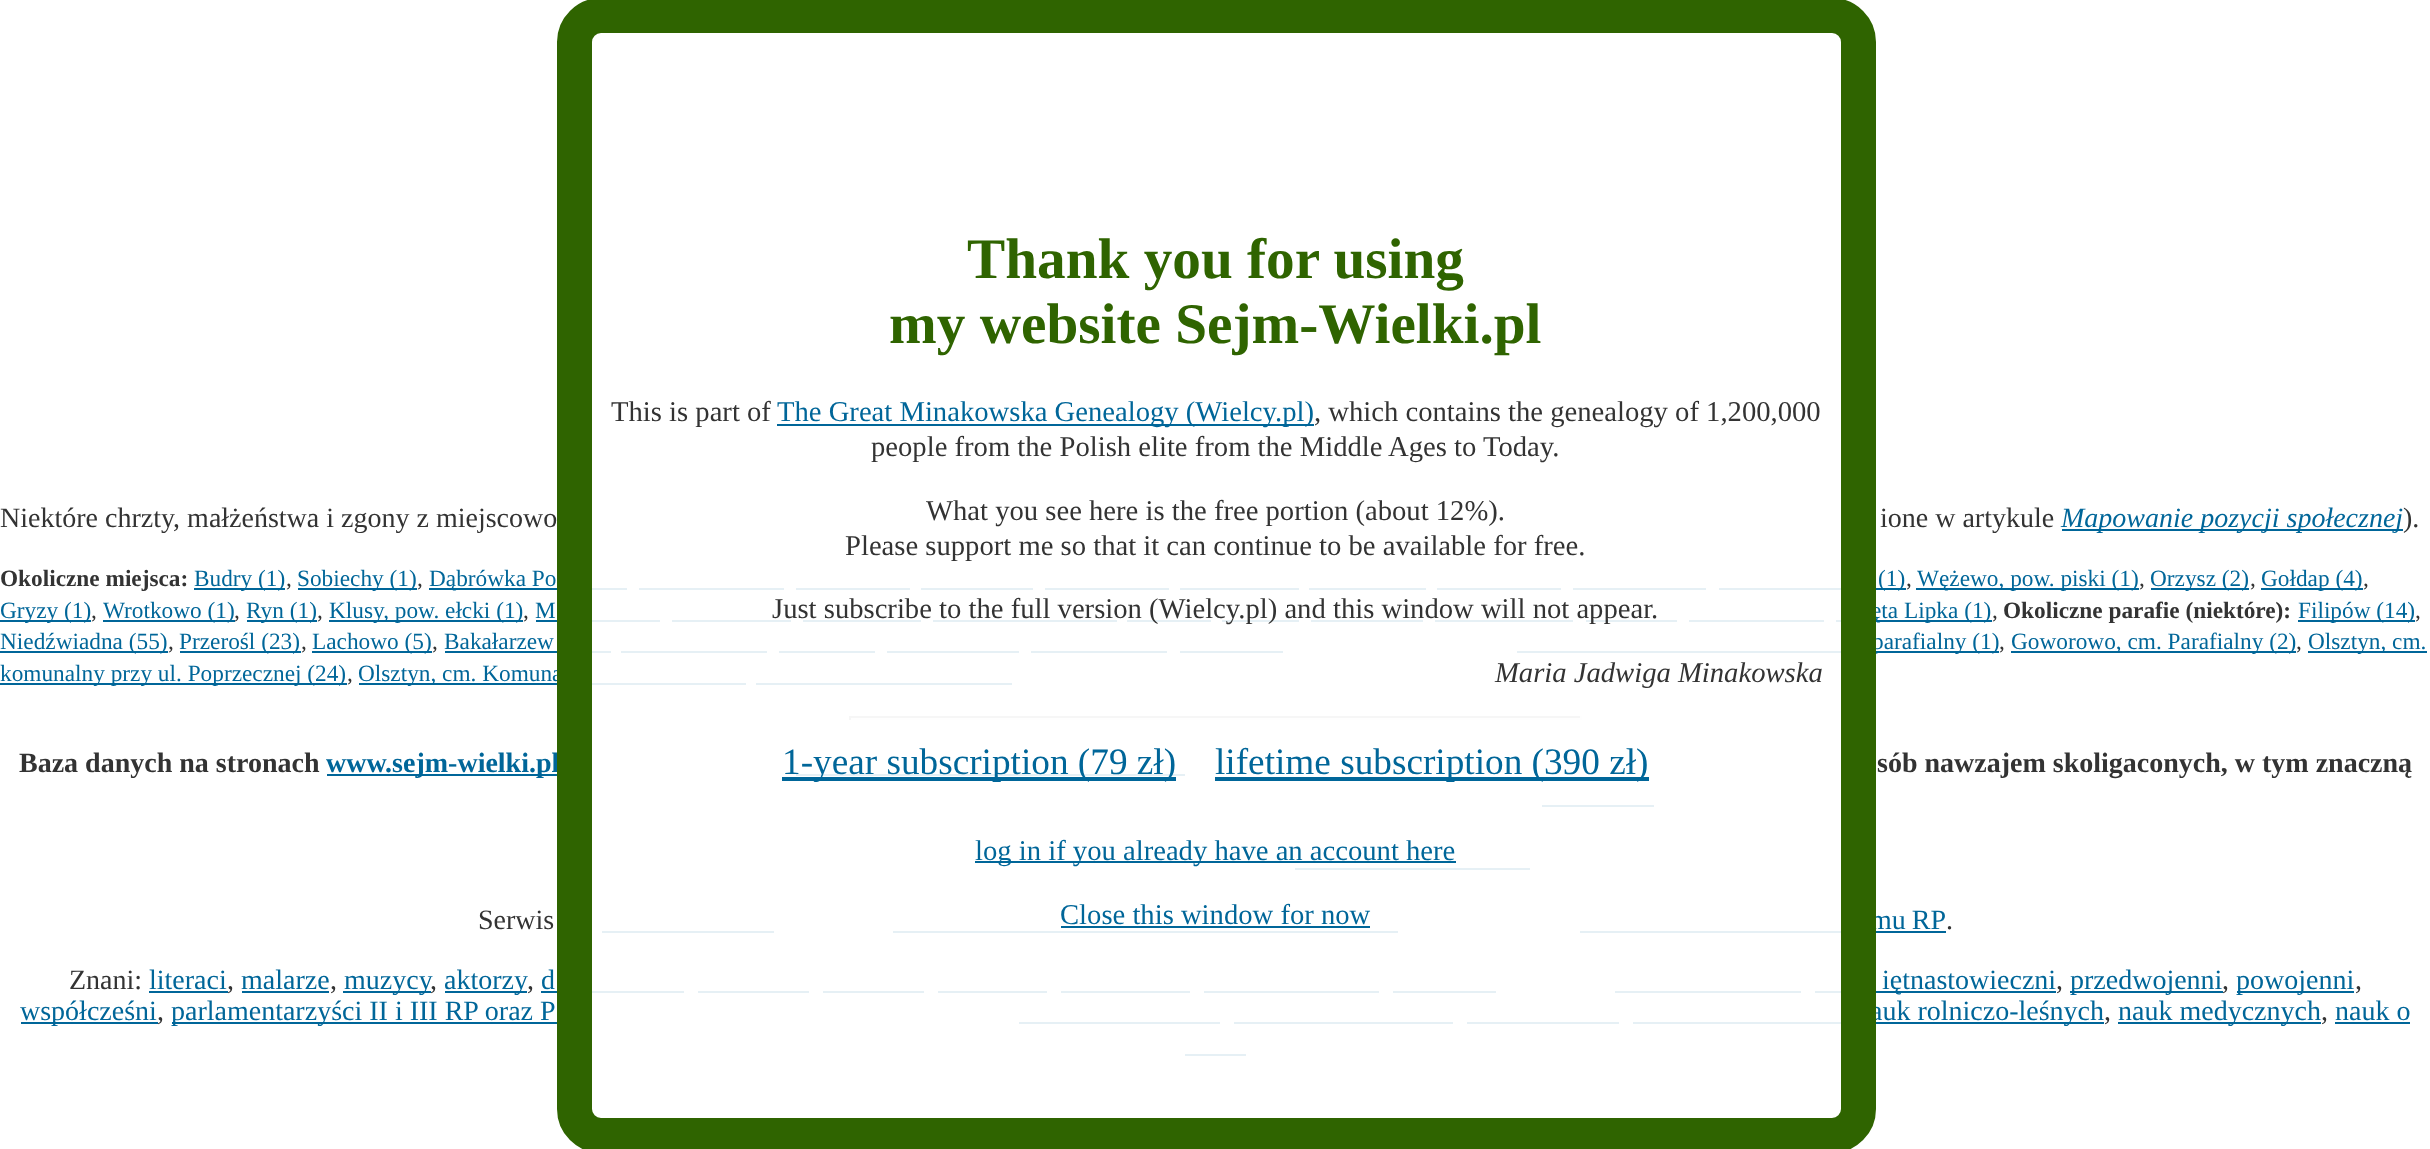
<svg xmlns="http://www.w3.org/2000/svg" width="2430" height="1149">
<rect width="100%" height="100%" fill="#fff"/>
<rect x="429" y="588" width="198" height="2" fill="#069"/>
<rect x="639" y="588" width="145" height="2" fill="#069"/>
<rect x="796" y="588" width="114" height="2" fill="#069"/>
<rect x="921" y="588" width="112" height="2" fill="#069"/>
<rect x="1045" y="588" width="124" height="2" fill="#069"/>
<rect x="1180" y="588" width="119" height="2" fill="#069"/>
<rect x="1309" y="588" width="117" height="2" fill="#069"/>
<rect x="1437" y="588" width="124" height="2" fill="#069"/>
<rect x="1573" y="588" width="133" height="2" fill="#069"/>
<rect x="1719" y="588" width="187" height="2" fill="#069"/>
<rect x="536" y="620" width="124" height="2" fill="#069"/>
<rect x="672" y="620" width="119" height="2" fill="#069"/>
<rect x="803" y="620" width="118" height="2" fill="#069"/>
<rect x="933" y="620" width="184" height="2" fill="#069"/>
<rect x="1127" y="620" width="84" height="2" fill="#069"/>
<rect x="1836" y="620" width="156" height="2" fill="#069"/>
<text x="1871" y="618" style="font-family:Liberation Serif;font-size:23.3px;fill:#069">ęta Lipka (1)</text>
<rect x="1222" y="620" width="77" height="2" fill="#069"/>
<rect x="1311" y="620" width="112" height="2" fill="#069"/>
<rect x="1435" y="620" width="138" height="2" fill="#069"/>
<rect x="1586" y="620" width="91" height="2" fill="#069"/>
<rect x="1689" y="620" width="135" height="2" fill="#069"/>
<rect x="445" y="651" width="166" height="2" fill="#069"/>
<rect x="621" y="651" width="146" height="2" fill="#069"/>
<rect x="779" y="651" width="96" height="2" fill="#069"/>
<rect x="887" y="651" width="132" height="2" fill="#069"/>
<rect x="1031" y="651" width="136" height="2" fill="#069"/>
<rect x="1517" y="651" width="482" height="2" fill="#069"/>
<text x="1872" y="649" style="font-family:Liberation Serif;font-size:23.3px;fill:#069">parafialny (1)</text>
<rect x="1180" y="651" width="103" height="2" fill="#069"/>
<rect x="359" y="683" width="387" height="2" fill="#069"/>
<text x="358" y="681" style="font-family:Liberation Serif;font-size:23.3px;fill:#069">Olsztyn, cm. Komuna</text>
<rect x="756" y="683" width="256" height="2" fill="#069"/>
<rect x="849" y="716" width="733" height="2" fill="#9f9f9f"/>
<rect x="1580" y="716" width="2" height="4" fill="#eee"/>
<rect x="849" y="718" width="733" height="2" fill="#eee"/>
<rect x="849" y="716" width="2" height="4" fill="#9f9f9f"/>
<rect x="327" y="774" width="233" height="2" fill="#069"/>
<text x="326" y="772" style="font-family:Liberation Serif;font-size:28px;font-weight:bold;fill:#069">www.sejm-wielki.pl</text>
<rect x="796" y="774" width="389" height="2" fill="#069"/>
<rect x="1542" y="805" width="112" height="2" fill="#069"/>
<rect x="1295" y="868" width="235" height="2" fill="#069"/>
<text x="1870" y="929" word-spacing="-1" style="font-family:Liberation Serif;font-size:28px;fill:#069">mu RP</text>
<rect x="1580" y="931" width="366" height="2" fill="#069"/>
<rect x="602" y="931" width="172" height="2" fill="#069"/>
<rect x="893" y="931" width="505" height="2" fill="#069"/>
<rect x="541" y="991" width="143" height="2" fill="#069"/>
<rect x="698" y="991" width="111" height="2" fill="#069"/>
<rect x="823" y="991" width="101" height="2" fill="#069"/>
<rect x="938" y="991" width="109" height="2" fill="#069"/>
<rect x="1061" y="991" width="129" height="2" fill="#069"/>
<rect x="1204" y="991" width="175" height="2" fill="#069"/>
<rect x="1393" y="991" width="103" height="2" fill="#069"/>
<rect x="1615" y="991" width="186" height="2" fill="#069"/>
<rect x="1815" y="991" width="241" height="2" fill="#069"/>
<rect x="1019" y="1022" width="201" height="2" fill="#069"/>
<rect x="1234" y="1022" width="219" height="2" fill="#069"/>
<rect x="1467" y="1022" width="152" height="2" fill="#069"/>
<rect x="1633" y="1022" width="210" height="2" fill="#069"/>
<rect x="1876" y="1022" width="228" height="2" fill="#069"/>
<text x="1870" y="1020" style="font-family:Liberation Serif;font-size:28px;fill:#069">auk rolniczo-leśnych</text>
<rect x="1185" y="1054" width="61" height="2" fill="#069"/>
<rect x="574.5" y="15.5" width="1284" height="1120" rx="26.5" fill="#ffffffe6" stroke="#2f6400" stroke-width="35"/>
<text x="967" y="278" style="font-family:Liberation Serif;font-size:57.25px;font-weight:bold;fill:#2f6400">Thank you for using</text>
<text x="889" y="343" style="font-family:Liberation Serif;font-size:57.25px;font-weight:bold;fill:#2f6400">my website Sejm-Wielki.pl</text>
<text x="611" y="421" style="font-family:Liberation Serif;font-size:28.65px;fill:#333">This is part of</text>
<rect x="777" y="424" width="537" height="2" fill="#069"/>
<text x="777" y="421" style="font-family:Liberation Serif;font-size:28.65px;fill:#069">The Great Minakowska Genealogy (Wielcy.pl)</text>
<text x="1314" y="421" style="font-family:Liberation Serif;font-size:28.65px;fill:#333">, which contains the genealogy of 1,200,000</text>
<text x="871" y="456" style="font-family:Liberation Serif;font-size:28.65px;fill:#333">people from the Polish elite from the Middle Ages to Today.</text>
<text x="926" y="520" style="font-family:Liberation Serif;font-size:28.65px;fill:#333">What you see here is the free portion (about 12%).</text>
<text x="845" y="555" style="font-family:Liberation Serif;font-size:28.65px;fill:#333">Please support me so that it can continue to be available for free.</text>
<text x="772" y="618" style="font-family:Liberation Serif;font-size:28.65px;fill:#333">Just subscribe to the full version (Wielcy.pl) and this window will not appear.</text>
<text x="1495" y="682" style="font-family:Liberation Serif;font-size:28.65px;font-style:italic;fill:#333">Maria Jadwiga Minakowska</text>
<rect x="782" y="777" width="394" height="4" fill="#069"/>
<text x="782" y="774" style="font-family:Liberation Serif;font-size:37.25px;fill:#069">1-year subscription (79 zł)</text>
<rect x="1215" y="777" width="434" height="4" fill="#069"/>
<text x="1215" y="774" style="font-family:Liberation Serif;font-size:37.25px;fill:#069">lifetime subscription (390 zł)</text>
<rect x="975" y="861" width="481" height="2" fill="#069"/>
<text x="975" y="860" style="font-family:Liberation Serif;font-size:28.65px;fill:#069">log in if you already have an account here</text>
<text x="1060" y="924" style="font-family:Liberation Serif;font-size:28.65px;fill:#069">Close this window for now</text>
<rect x="1061" y="926" width="309" height="2" fill="#069"/>
<text x="0" y="527" style="font-family:Liberation Serif;font-size:28px;fill:#333">Niektóre chrzty, małżeństwa i zgony z miejscowo</text>
<text x="1880" y="527" style="font-family:Liberation Serif;font-size:28px;fill:#333">ione w artykule</text>
<rect x="2062" y="529" width="341" height="2" fill="#069"/>
<text x="2061" y="527" style="font-family:Liberation Serif;font-size:28px;font-style:italic;fill:#069">Mapowanie pozycji społecznej</text>
<text x="2403" y="527" style="font-family:Liberation Serif;font-size:28px;fill:#333">).</text>
<text x="0" y="586" style="font-family:Liberation Serif;font-size:23.3px;font-weight:bold;fill:#333">Okoliczne miejsca:</text>
<rect x="194" y="588" width="91" height="2" fill="#069"/>
<text x="194" y="586" style="font-family:Liberation Serif;font-size:23.3px;fill:#069">Budry (1)</text>
<text x="286" y="586" style="font-family:Liberation Serif;font-size:23.3px;fill:#333">,</text>
<rect x="298" y="588" width="119" height="2" fill="#069"/>
<text x="297" y="586" style="font-family:Liberation Serif;font-size:23.3px;fill:#069">Sobiechy (1)</text>
<text x="417" y="586" style="font-family:Liberation Serif;font-size:23.3px;fill:#333">,</text>
<text x="429" y="586" style="font-family:Liberation Serif;font-size:23.3px;fill:#069">Dąbrówka Po</text>
<text x="1878" y="586" style="font-family:Liberation Serif;font-size:23.3px;fill:#069">(1)</text>
<text x="1906" y="586" style="font-family:Liberation Serif;font-size:23.3px;fill:#333">,</text>
<rect x="1916" y="588" width="223" height="2" fill="#069"/>
<text x="1917" y="586" style="font-family:Liberation Serif;font-size:23.3px;fill:#069">Wężewo, pow. piski (1)</text>
<text x="2139" y="586" style="font-family:Liberation Serif;font-size:23.3px;fill:#333">,</text>
<rect x="2151" y="588" width="98" height="2" fill="#069"/>
<text x="2150" y="586" style="font-family:Liberation Serif;font-size:23.3px;fill:#069">Orzysz (2)</text>
<text x="2250" y="586" style="font-family:Liberation Serif;font-size:23.3px;fill:#333">,</text>
<rect x="2261" y="588" width="102" height="2" fill="#069"/>
<text x="2261" y="586" style="font-family:Liberation Serif;font-size:23.3px;fill:#069">Gołdap (4)</text>
<text x="2363" y="586" style="font-family:Liberation Serif;font-size:23.3px;fill:#333">,</text>
<rect y="620" width="91" height="2" fill="#069"/>
<text x="0" y="618" style="font-family:Liberation Serif;font-size:23.3px;fill:#069">Gryzy (1)</text>
<text x="91" y="618" style="font-family:Liberation Serif;font-size:23.3px;fill:#333">,</text>
<rect x="103" y="620" width="132" height="2" fill="#069"/>
<text x="103" y="618" style="font-family:Liberation Serif;font-size:23.3px;fill:#069">Wrotkowo (1)</text>
<text x="234" y="618" style="font-family:Liberation Serif;font-size:23.3px;fill:#333">,</text>
<rect x="247" y="620" width="70" height="2" fill="#069"/>
<text x="246" y="618" style="font-family:Liberation Serif;font-size:23.3px;fill:#069">Ryn (1)</text>
<text x="317" y="618" style="font-family:Liberation Serif;font-size:23.3px;fill:#333">,</text>
<rect x="329" y="620" width="194" height="2" fill="#069"/>
<text x="329" y="618" style="font-family:Liberation Serif;font-size:23.3px;fill:#069">Klusy, pow. ełcki (1)</text>
<text x="523" y="618" style="font-family:Liberation Serif;font-size:23.3px;fill:#333">,</text>
<text x="535" y="618" style="font-family:Liberation Serif;font-size:23.3px;fill:#069">M</text>
<text x="1992" y="618" style="font-family:Liberation Serif;font-size:23.3px;fill:#333">,</text>
<text x="2003" y="618" style="font-family:Liberation Serif;font-size:23.3px;font-weight:bold;fill:#333">Okoliczne parafie (niektóre):</text>
<rect x="2298" y="620" width="117" height="2" fill="#069"/>
<text x="2298" y="618" style="font-family:Liberation Serif;font-size:23.3px;fill:#069">Filipów (14)</text>
<text x="2415" y="618" style="font-family:Liberation Serif;font-size:23.3px;fill:#333">,</text>
<rect y="651" width="168" height="2" fill="#069"/>
<text x="0" y="649" style="font-family:Liberation Serif;font-size:23.3px;fill:#069">Niedźwiadna (55)</text>
<text x="168" y="649" style="font-family:Liberation Serif;font-size:23.3px;fill:#333">,</text>
<rect x="180" y="651" width="121" height="2" fill="#069"/>
<text x="179" y="649" style="font-family:Liberation Serif;font-size:23.3px;fill:#069">Przerośl (23)</text>
<text x="301" y="649" style="font-family:Liberation Serif;font-size:23.3px;fill:#333">,</text>
<rect x="312" y="651" width="120" height="2" fill="#069"/>
<text x="312" y="649" style="font-family:Liberation Serif;font-size:23.3px;fill:#069">Lachowo (5)</text>
<text x="432" y="649" style="font-family:Liberation Serif;font-size:23.3px;fill:#333">,</text>
<text x="444" y="649" style="font-family:Liberation Serif;font-size:23.3px;fill:#069">Bakałarzew</text>
<text x="1999" y="649" style="font-family:Liberation Serif;font-size:23.3px;fill:#333">,</text>
<rect x="2011" y="651" width="285" height="2" fill="#069"/>
<text x="2011" y="649" style="font-family:Liberation Serif;font-size:23.3px;fill:#069">Goworowo, cm. Parafialny (2)</text>
<text x="2296" y="649" style="font-family:Liberation Serif;font-size:23.3px;fill:#333">,</text>
<rect x="2308" y="651" width="119" height="2" fill="#069"/>
<text x="2308" y="649" style="font-family:Liberation Serif;font-size:23.3px;fill:#069">Olsztyn, cm.</text>
<rect y="683" width="347" height="2" fill="#069"/>
<text x="0" y="681" style="font-family:Liberation Serif;font-size:23.3px;fill:#069">komunalny przy ul. Poprzecznej (24)</text>
<text x="347" y="681" style="font-family:Liberation Serif;font-size:23.3px;fill:#333">,</text>
<text x="19" y="772" style="font-family:Liberation Serif;font-size:28px;font-weight:bold;fill:#333">Baza danych na stronach</text>
<text x="1877" y="772" style="font-family:Liberation Serif;font-size:28px;font-weight:bold;fill:#333">sób nawzajem skoligaconych, w tym znaczną</text>
<text x="478" y="929" style="font-family:Liberation Serif;font-size:28px;fill:#333">Serwis</text>
<text x="1946" y="929" style="font-family:Liberation Serif;font-size:28px;fill:#333">.</text>
<text x="69" y="989" style="font-family:Liberation Serif;font-size:28px;fill:#333">Znani:</text>
<text x="149" y="989" style="font-family:Liberation Serif;font-size:28px;fill:#069">literaci</text>
<rect x="149" y="991" width="79" height="2" fill="#069"/>
<text x="227" y="989" style="font-family:Liberation Serif;font-size:28px;fill:#333">,</text>
<text x="241" y="989" style="font-family:Liberation Serif;font-size:28px;fill:#069">malarze</text>
<rect x="242" y="991" width="87" height="2" fill="#069"/>
<text x="330" y="989" style="font-family:Liberation Serif;font-size:28px;fill:#333">,</text>
<rect x="343" y="991" width="88" height="2" fill="#069"/>
<text x="344" y="989" style="font-family:Liberation Serif;font-size:28px;fill:#069">muzycy</text>
<text x="430" y="989" style="font-family:Liberation Serif;font-size:28px;fill:#333">,</text>
<rect x="445" y="991" width="82" height="2" fill="#069"/>
<text x="444" y="989" style="font-family:Liberation Serif;font-size:28px;fill:#069">aktorzy</text>
<text x="527" y="989" style="font-family:Liberation Serif;font-size:28px;fill:#333">,</text>
<text x="541" y="989" style="font-family:Liberation Serif;font-size:28px;fill:#069">d</text>
<text x="1882" y="989" style="font-family:Liberation Serif;font-size:28px;fill:#069">iętnastowieczni</text>
<text x="2056" y="989" style="font-family:Liberation Serif;font-size:28px;fill:#333">,</text>
<rect x="2070" y="991" width="153" height="2" fill="#069"/>
<text x="2070" y="989" style="font-family:Liberation Serif;font-size:28px;fill:#069">przedwojenni</text>
<text x="2222" y="989" style="font-family:Liberation Serif;font-size:28px;fill:#333">,</text>
<rect x="2237" y="991" width="117" height="2" fill="#069"/>
<text x="2236" y="989" style="font-family:Liberation Serif;font-size:28px;fill:#069">powojenni</text>
<text x="2355" y="989" style="font-family:Liberation Serif;font-size:28px;fill:#333">,</text>
<rect x="21" y="1022" width="137" height="2" fill="#069"/>
<text x="20" y="1020" style="font-family:Liberation Serif;font-size:28px;fill:#069">współcześni</text>
<text x="157" y="1020" style="font-family:Liberation Serif;font-size:28px;fill:#333">,</text>
<rect x="172" y="1022" width="385" height="2" fill="#069"/>
<text x="171" y="1020" style="font-family:Liberation Serif;font-size:28px;fill:#069">parlamentarzyści II i III RP oraz P</text>
<text x="2104" y="1020" style="font-family:Liberation Serif;font-size:28px;fill:#333">,</text>
<rect x="2118" y="1022" width="203" height="2" fill="#069"/>
<text x="2118" y="1020" style="font-family:Liberation Serif;font-size:28px;fill:#069">nauk medycznych</text>
<text x="2321" y="1020" style="font-family:Liberation Serif;font-size:28px;fill:#333">,</text>
<text x="2335" y="1020" style="font-family:Liberation Serif;font-size:28px;fill:#069">nauk o</text>
<rect x="2335" y="1022" width="75" height="2" fill="#069"/>
</svg>
